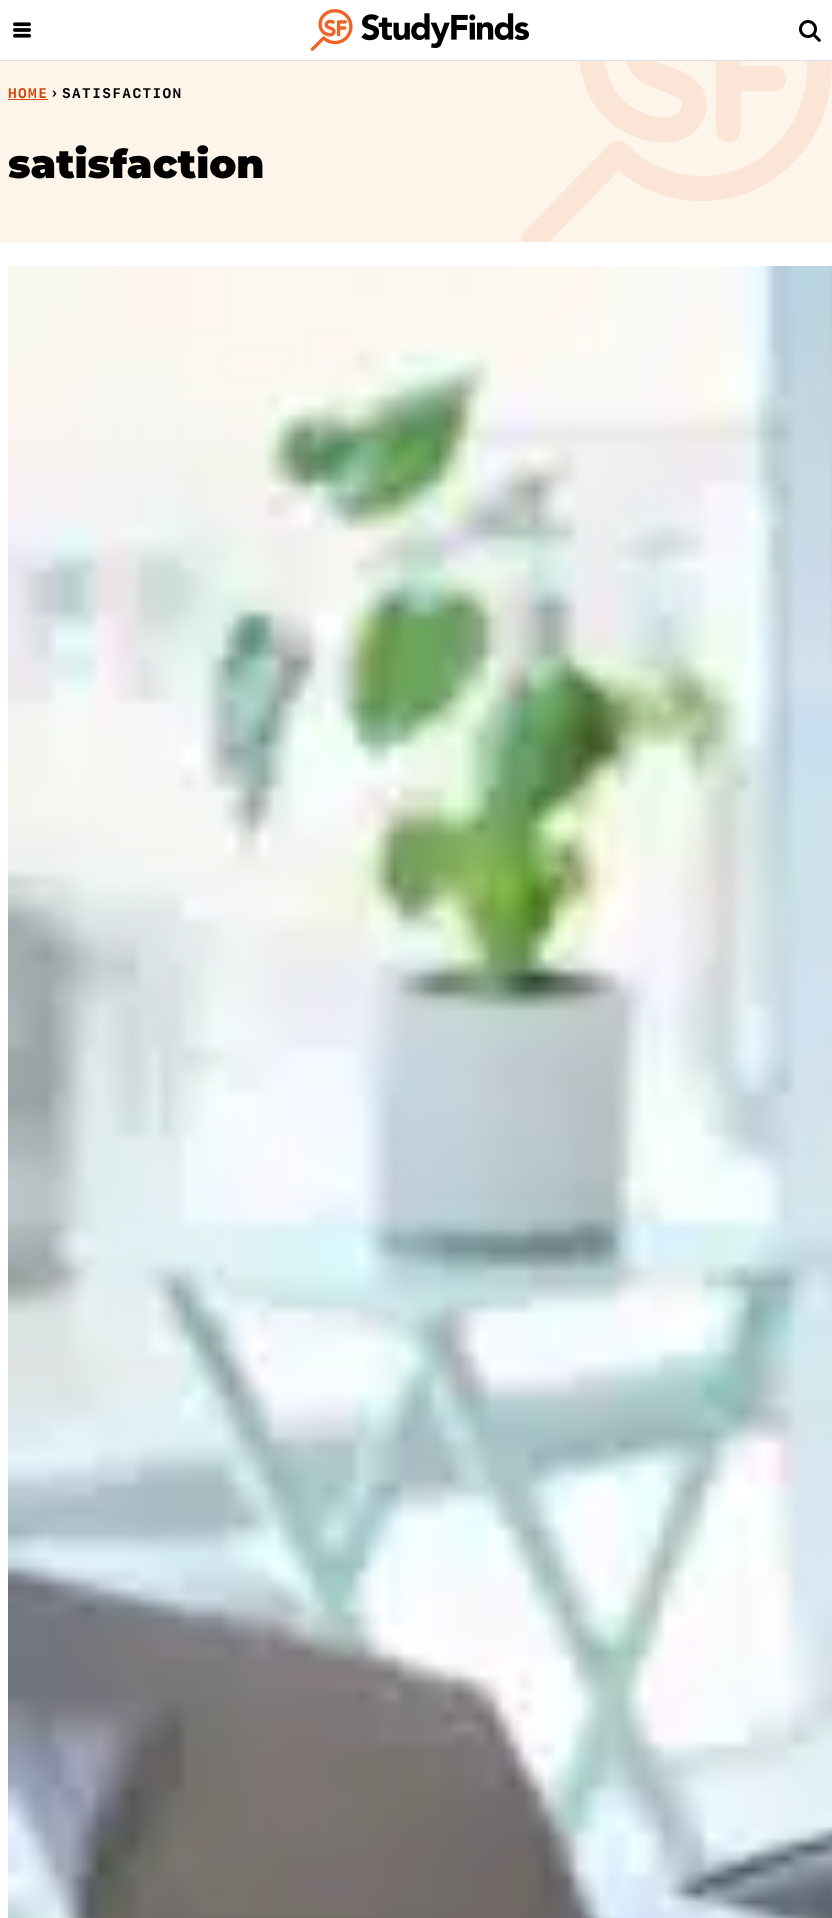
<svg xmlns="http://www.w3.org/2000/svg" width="832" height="1918">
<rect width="100%" height="100%" fill="#fff"/>
<rect y="60" width="832" height="1" fill="#e0e0e0"/>
<image x="13" y="22" width="18" height="16" href="media/1.png"/>
<image x="310" y="9" width="219" height="42" href="media/2.png"/>
<image x="799" y="20" width="22" height="22" href="media/3.png"/>
<rect y="61" width="832" height="181" fill="#fdf4ea"/>
<text x="8" y="98" style="font-family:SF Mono;font-size:14px;font-weight:bold;letter-spacing:1.4px;fill:#d1480d">HOME</text>
<rect x="8" y="99" width="40" height="1" fill="#d1480d"/>
<text x="50" y="98" style="font-family:SF Mono;font-size:14px;font-weight:bold;letter-spacing:1.4px;fill:#000">›</text>
<text x="62" y="98" style="font-family:SF Mono;font-size:14px;font-weight:bold;letter-spacing:1.4px;fill:#000">SATISFACTION</text>
<image x="521" y="61" width="311" height="181" href="media/4.png"/>
<text x="8" y="178" style="font-family:Montserrat;font-size:40px;font-weight:900;fill:#000">satisfaction</text>
<image x="8" y="266" width="824" height="1652" href="media/5.png"/>
</svg>
